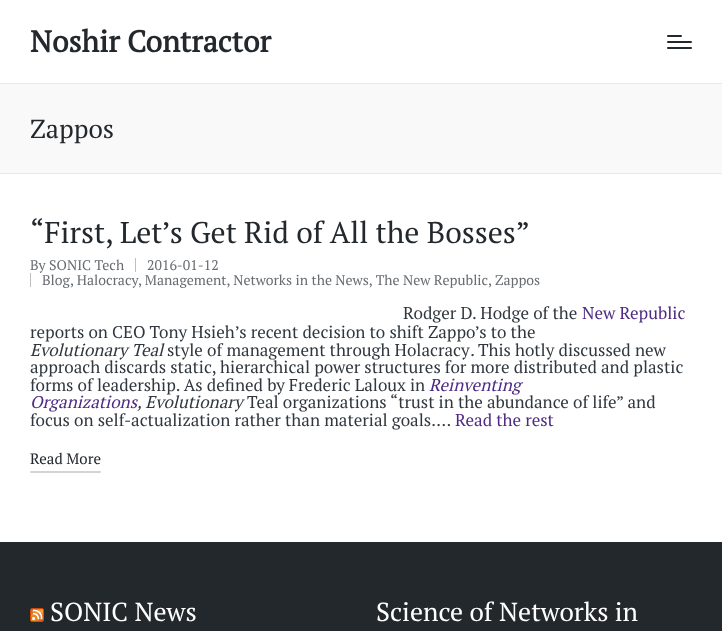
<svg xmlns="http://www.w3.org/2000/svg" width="722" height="631">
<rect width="100%" height="100%" fill="#fff"/>
<rect y="83" width="722" height="1" fill="#e9e9e9"/>
<text x="30" y="52" style="font-family:PT Serif;font-size:30px;font-weight:bold;fill:#23282d">Noshir Contractor</text>
<rect x="667" y="41" width="25" height="2" rx="1" fill="#23282d"/>
<rect x="667" y="35" width="15" height="2" rx="1" fill="#23282d"/>
<rect x="667" y="47" width="25" height="2" rx="1" fill="#23282d"/>
<rect y="84" width="722" height="89" fill="#f9f9f9"/>
<rect y="173" width="722" height="1" fill="#e9e9e9"/>
<text x="30" y="138" style="font-family:PT Serif;font-size:26px;fill:#23282d">Zappos</text>
<text x="30" y="243" style="font-family:PT Serif;font-size:30px;fill:#23282d">“First, Let’s Get Rid of All the Bosses”</text>
<text x="30" y="270" style="font-family:PT Serif;font-size:14px;fill:#686d72">By SONIC Tech</text>
<rect x="135" y="258" width="1" height="14" fill="#bfbfbf"/>
<text x="147" y="270" style="font-family:PT Serif;font-size:14px;fill:#686d72">2016-01-12</text>
<rect x="30" y="273" width="1" height="14" fill="#bfbfbf"/>
<text x="42" y="285" style="font-family:PT Serif;font-size:14px;fill:#686d72">Blog, Halocracy</text>
<text x="138" y="285" style="font-family:PT Serif;font-size:14px;fill:#686d72">, Management, Networks in the News, The New Republic, Zappos</text>
<text x="403" y="319" style="font-family:PT Serif;font-size:17px;fill:#30373e">Rodger D. Hodge of the</text>
<text x="582" y="319" style="font-family:PT Serif;font-size:17px;fill:#4e2a84">New Republic</text>
<text x="30" y="338" style="font-family:PT Serif;font-size:17px;fill:#30373e">reports on CEO Tony Hsieh’s recent decision to shift Zappo’s to the</text>
<text x="30" y="356" style="font-family:PT Serif;font-size:17px;font-style:italic;fill:#30373e">Evolutionary Teal</text>
<text x="167" y="356" style="font-family:PT Serif;font-size:17px;fill:#30373e">style of management through Holacracy</text>
<text x="470" y="356" style="font-family:PT Serif;font-size:17px;font-style:italic;fill:#30373e">.</text>
<text x="478" y="356" style="font-family:PT Serif;font-size:17px;fill:#30373e">This hotly discussed new</text>
<text x="30" y="373" style="font-family:PT Serif;font-size:17px;fill:#30373e">approach discards static, hierarchical power structures for more distributed and plastic</text>
<text x="30" y="391" style="font-family:PT Serif;font-size:17px;fill:#30373e">forms of leadership. As defined by Frederic Laloux in</text>
<text x="429" y="391" style="font-family:PT Serif;font-size:17px;font-style:italic;fill:#4e2a84">Reinventing</text>
<text x="30" y="408" style="font-family:PT Serif;font-size:17px;font-style:italic;fill:#4e2a84">Organizations</text>
<text x="137" y="408" style="font-family:PT Serif;font-size:17px;font-style:italic;fill:#30373e">, Evolutionary</text>
<text x="247" y="408" style="font-family:PT Serif;font-size:17px;fill:#30373e">Teal organizations “trust in the abundance of life” and</text>
<text x="30" y="426" style="font-family:PT Serif;font-size:17px;fill:#30373e">focus on self-actualization rather than material goals.…</text>
<text x="455" y="426" style="font-family:PT Serif;font-size:17px;fill:#4e2a84">Read the rest</text>
<text x="30" y="464" style="font-family:PT Serif;font-size:15px;fill:#23282d">Read More</text>
<rect x="30" y="471" width="71" height="2" rx="1" fill="#d3d4d5"/>
<rect y="542" width="722" height="89" fill="#23282d"/>
<image x="30" y="608" width="14" height="14" href="media/1.png"/>
<text x="50" y="621" style="font-family:PT Serif;font-size:26px;fill:#fff">SONIC News</text>
<text x="376" y="621" style="font-family:PT Serif;font-size:26px;fill:#fff">Science of Networks in</text>
</svg>
